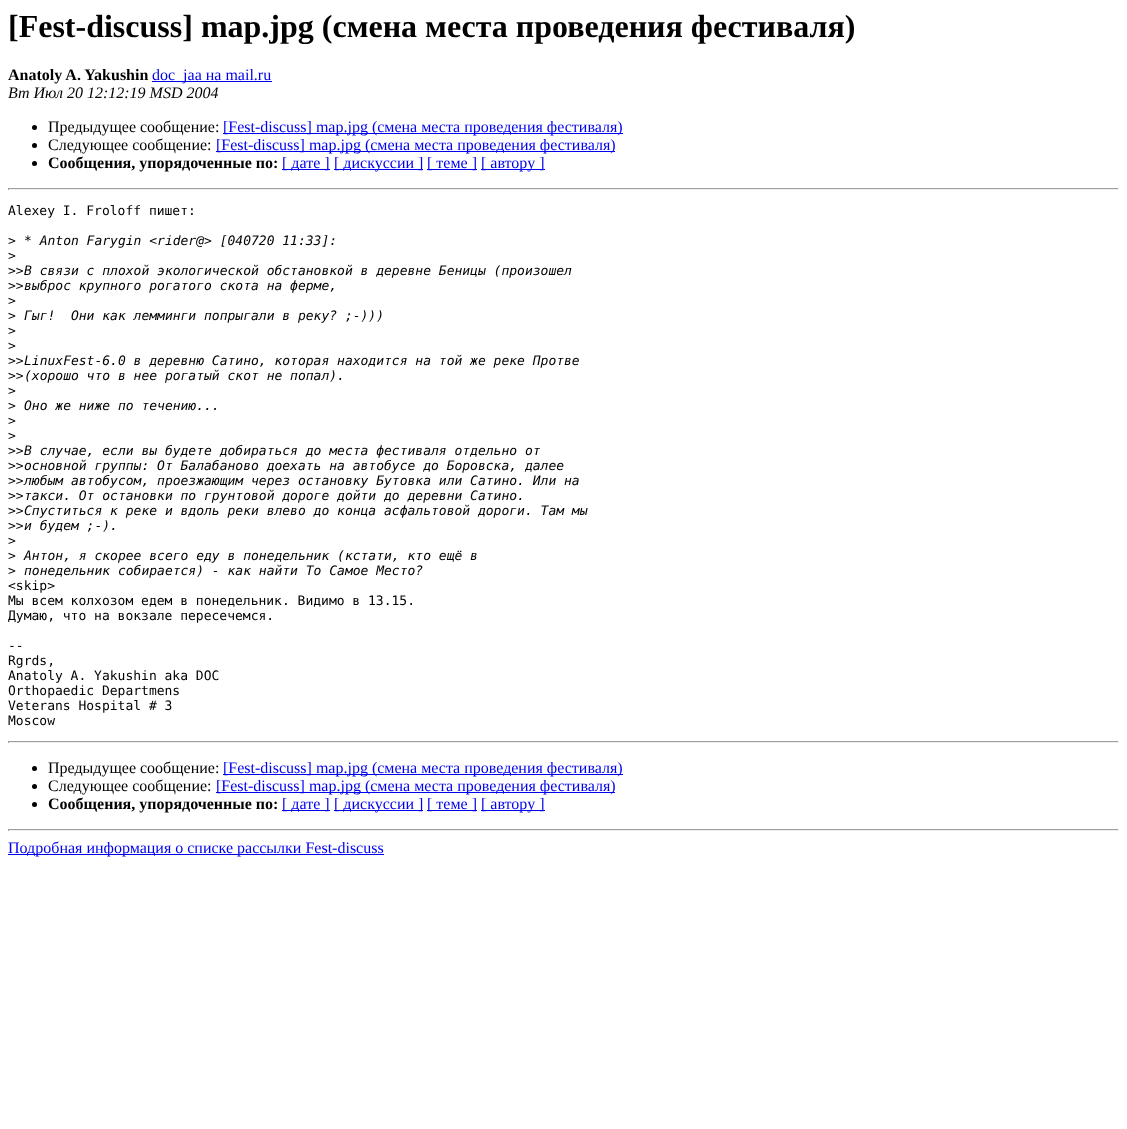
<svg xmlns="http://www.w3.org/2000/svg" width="1127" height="1129">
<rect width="100%" height="100%" fill="#fff"/>
<text x="8" y="37" style="font-family:Liberation Serif;font-size:32px;font-weight:bold;fill:#000">[Fest-discuss] map.jpg (смена места проведения фестиваля)</text>
<text x="8" y="80" style="font-family:Liberation Serif;font-size:16px;font-weight:bold;fill:#000">Anatoly A. Yakushin</text>
<rect x="152" y="81" width="120" height="1" fill="#00e"/>
<text x="152" y="80" style="font-family:Liberation Serif;font-size:16px;fill:#00e">doc_jaa на mail.ru</text>
<text x="8" y="98" style="font-family:Liberation Serif;font-size:16px;font-style:italic;fill:#000">Вт Июл 20 12:12:19 MSD 2004</text>
<circle cx="34.5" cy="127.5" r="2.5" fill="#000"/>
<text x="48" y="132" style="font-family:Liberation Serif;font-size:16px;fill:#000">Предыдущее сообщение:</text>
<rect x="223" y="133" width="400" height="1" fill="#00e"/>
<text x="223" y="132" style="font-family:Liberation Serif;font-size:16px;fill:#00e">[Fest-discuss] map.jpg (смена места проведения фестиваля)</text>
<circle cx="34.5" cy="145.5" r="2.5" fill="#000"/>
<text x="48" y="150" style="font-family:Liberation Serif;font-size:16px;fill:#000">Следующее сообщение:</text>
<rect x="216" y="151" width="399" height="1" fill="#00e"/>
<text x="216" y="150" style="font-family:Liberation Serif;font-size:16px;fill:#00e">[Fest-discuss] map.jpg (смена места проведения фестиваля)</text>
<circle cx="34.5" cy="163.5" r="2.5" fill="#000"/>
<text x="48" y="168" style="font-family:Liberation Serif;font-size:16px;font-weight:bold;fill:#000">Сообщения, упорядоченные по:</text>
<rect x="282" y="169" width="48" height="1" fill="#00e"/>
<text x="282" y="168" style="font-family:Liberation Serif;font-size:16px;fill:#00e">[ дате ]</text>
<rect x="334" y="169" width="89" height="1" fill="#00e"/>
<text x="334" y="168" style="font-family:Liberation Serif;font-size:16px;fill:#00e">[ дискуссии ]</text>
<rect x="427" y="169" width="50" height="1" fill="#00e"/>
<text x="427" y="168" style="font-family:Liberation Serif;font-size:16px;fill:#00e">[ теме ]</text>
<rect x="481" y="169" width="64" height="1" fill="#00e"/>
<text x="481" y="168" style="font-family:Liberation Serif;font-size:16px;fill:#00e">[ автору ]</text>
<rect x="8" y="188" width="1111" height="1" fill="#9f9f9f"/>
<rect x="1118" y="188" width="1" height="2" fill="#eee"/>
<rect x="8" y="189" width="1111" height="1" fill="#eee"/>
<rect x="8" y="188" width="1" height="2" fill="#9f9f9f"/>
<text x="8" y="215" style="font-family:DejaVu Sans Mono;font-size:13px;fill:#000">Alexey I. Froloff пишет:</text>
<text x="8" y="245" style="font-family:DejaVu Sans Mono;font-size:13px;fill:#000">&gt;</text>
<text x="24" y="245" style="font-family:DejaVu Sans Mono;font-size:13px;font-style:italic;fill:#000">* Anton Farygin &lt;rider@&gt; [040720 11:33]:</text>
<text x="8" y="260" style="font-family:DejaVu Sans Mono;font-size:13px;fill:#000">&gt;</text>
<text x="8" y="275" style="font-family:DejaVu Sans Mono;font-size:13px;fill:#000">&gt;&gt;</text>
<text x="24" y="275" style="font-family:DejaVu Sans Mono;font-size:13px;font-style:italic;fill:#000">В связи с плохой экологической обстановкой в деревне Беницы (произошел</text>
<text x="8" y="290" style="font-family:DejaVu Sans Mono;font-size:13px;fill:#000">&gt;&gt;</text>
<text x="24" y="290" style="font-family:DejaVu Sans Mono;font-size:13px;font-style:italic;fill:#000">выброс крупного рогатого скота на ферме,</text>
<text x="8" y="305" style="font-family:DejaVu Sans Mono;font-size:13px;fill:#000">&gt;</text>
<text x="8" y="320" style="font-family:DejaVu Sans Mono;font-size:13px;fill:#000">&gt;</text>
<text x="24" y="320" style="font-family:DejaVu Sans Mono;font-size:13px;font-style:italic;fill:#000" xml:space="preserve">Гыг!  Они как лемминги попрыгали в реку? ;-)))</text>
<text x="8" y="335" style="font-family:DejaVu Sans Mono;font-size:13px;fill:#000">&gt;</text>
<text x="8" y="350" style="font-family:DejaVu Sans Mono;font-size:13px;fill:#000">&gt;</text>
<text x="8" y="365" style="font-family:DejaVu Sans Mono;font-size:13px;fill:#000">&gt;&gt;</text>
<text x="24" y="365" style="font-family:DejaVu Sans Mono;font-size:13px;font-style:italic;fill:#000">LinuxFest-6.0 в деревню Сатино, которая находится на той же реке Протве</text>
<text x="8" y="380" style="font-family:DejaVu Sans Mono;font-size:13px;fill:#000">&gt;&gt;</text>
<text x="24" y="380" style="font-family:DejaVu Sans Mono;font-size:13px;font-style:italic;fill:#000">(хорошо что в нее рогатый скот не попал).</text>
<text x="8" y="395" style="font-family:DejaVu Sans Mono;font-size:13px;fill:#000">&gt;</text>
<text x="8" y="410" style="font-family:DejaVu Sans Mono;font-size:13px;fill:#000">&gt;</text>
<text x="24" y="410" style="font-family:DejaVu Sans Mono;font-size:13px;font-style:italic;fill:#000">Оно же ниже по течению...</text>
<text x="8" y="425" style="font-family:DejaVu Sans Mono;font-size:13px;fill:#000">&gt;</text>
<text x="8" y="440" style="font-family:DejaVu Sans Mono;font-size:13px;fill:#000">&gt;</text>
<text x="8" y="455" style="font-family:DejaVu Sans Mono;font-size:13px;fill:#000">&gt;&gt;</text>
<text x="24" y="455" style="font-family:DejaVu Sans Mono;font-size:13px;font-style:italic;fill:#000">В случае, если вы будете добираться до места фестиваля отдельно от</text>
<text x="8" y="470" style="font-family:DejaVu Sans Mono;font-size:13px;fill:#000">&gt;&gt;</text>
<text x="24" y="470" style="font-family:DejaVu Sans Mono;font-size:13px;font-style:italic;fill:#000">основной группы: От Балабаново доехать на автобусе до Боровска, далее</text>
<text x="8" y="485" style="font-family:DejaVu Sans Mono;font-size:13px;fill:#000">&gt;&gt;</text>
<text x="24" y="485" style="font-family:DejaVu Sans Mono;font-size:13px;font-style:italic;fill:#000">любым автобусом, проезжающим через остановку Бутовка или Сатино. Или на</text>
<text x="8" y="500" style="font-family:DejaVu Sans Mono;font-size:13px;fill:#000">&gt;&gt;</text>
<text x="24" y="500" style="font-family:DejaVu Sans Mono;font-size:13px;font-style:italic;fill:#000">такси. От остановки по грунтовой дороге дойти до деревни Сатино.</text>
<text x="8" y="515" style="font-family:DejaVu Sans Mono;font-size:13px;fill:#000">&gt;&gt;</text>
<text x="24" y="515" style="font-family:DejaVu Sans Mono;font-size:13px;font-style:italic;fill:#000">Спуститься к реке и вдоль реки влево до конца асфальтовой дороги. Там мы</text>
<text x="8" y="530" style="font-family:DejaVu Sans Mono;font-size:13px;fill:#000">&gt;&gt;</text>
<text x="24" y="530" style="font-family:DejaVu Sans Mono;font-size:13px;font-style:italic;fill:#000">и будем ;-).</text>
<text x="8" y="545" style="font-family:DejaVu Sans Mono;font-size:13px;fill:#000">&gt;</text>
<text x="8" y="560" style="font-family:DejaVu Sans Mono;font-size:13px;fill:#000">&gt;</text>
<text x="24" y="560" style="font-family:DejaVu Sans Mono;font-size:13px;font-style:italic;fill:#000">Антон, я скорее всего еду в понедельник (кстати, кто ещё в</text>
<text x="8" y="575" style="font-family:DejaVu Sans Mono;font-size:13px;fill:#000">&gt;</text>
<text x="24" y="575" style="font-family:DejaVu Sans Mono;font-size:13px;font-style:italic;fill:#000">понедельник собирается) - как найти То Самое Место?</text>
<text x="8" y="590" style="font-family:DejaVu Sans Mono;font-size:13px;fill:#000">&lt;skip&gt;</text>
<text x="8" y="605" style="font-family:DejaVu Sans Mono;font-size:13px;fill:#000">Мы всем колхозом едем в понедельник. Видимо в 13.15.</text>
<text x="8" y="620" style="font-family:DejaVu Sans Mono;font-size:13px;fill:#000">Думаю, что на вокзале пересечемся.</text>
<text x="8" y="650" style="font-family:DejaVu Sans Mono;font-size:13px;fill:#000">--</text>
<text x="8" y="665" style="font-family:DejaVu Sans Mono;font-size:13px;fill:#000">Rgrds,</text>
<text x="8" y="680" style="font-family:DejaVu Sans Mono;font-size:13px;fill:#000">Anatoly A. Yakushin aka DOC</text>
<text x="8" y="695" style="font-family:DejaVu Sans Mono;font-size:13px;fill:#000">Orthopaedic Departmens</text>
<text x="8" y="710" style="font-family:DejaVu Sans Mono;font-size:13px;fill:#000">Veterans Hospital # 3</text>
<text x="8" y="725" style="font-family:DejaVu Sans Mono;font-size:13px;fill:#000">Moscow</text>
<rect x="8" y="741" width="1111" height="1" fill="#9f9f9f"/>
<rect x="1118" y="741" width="1" height="2" fill="#eee"/>
<rect x="8" y="742" width="1111" height="1" fill="#eee"/>
<rect x="8" y="741" width="1" height="2" fill="#9f9f9f"/>
<circle cx="34.5" cy="768.5" r="2.5" fill="#000"/>
<text x="48" y="773" style="font-family:Liberation Serif;font-size:16px;fill:#000">Предыдущее сообщение:</text>
<rect x="223" y="774" width="400" height="1" fill="#00e"/>
<text x="223" y="773" style="font-family:Liberation Serif;font-size:16px;fill:#00e">[Fest-discuss] map.jpg (смена места проведения фестиваля)</text>
<circle cx="34.5" cy="786.5" r="2.5" fill="#000"/>
<text x="48" y="791" style="font-family:Liberation Serif;font-size:16px;fill:#000">Следующее сообщение:</text>
<rect x="216" y="792" width="399" height="1" fill="#00e"/>
<text x="216" y="791" style="font-family:Liberation Serif;font-size:16px;fill:#00e">[Fest-discuss] map.jpg (смена места проведения фестиваля)</text>
<circle cx="34.5" cy="804.5" r="2.5" fill="#000"/>
<text x="48" y="809" style="font-family:Liberation Serif;font-size:16px;font-weight:bold;fill:#000">Сообщения, упорядоченные по:</text>
<rect x="282" y="810" width="48" height="1" fill="#00e"/>
<text x="282" y="809" style="font-family:Liberation Serif;font-size:16px;fill:#00e">[ дате ]</text>
<rect x="334" y="810" width="89" height="1" fill="#00e"/>
<text x="334" y="809" style="font-family:Liberation Serif;font-size:16px;fill:#00e">[ дискуссии ]</text>
<rect x="427" y="810" width="50" height="1" fill="#00e"/>
<text x="427" y="809" style="font-family:Liberation Serif;font-size:16px;fill:#00e">[ теме ]</text>
<rect x="481" y="810" width="64" height="1" fill="#00e"/>
<text x="481" y="809" style="font-family:Liberation Serif;font-size:16px;fill:#00e">[ автору ]</text>
<rect x="8" y="829" width="1111" height="1" fill="#9f9f9f"/>
<rect x="1118" y="829" width="1" height="2" fill="#eee"/>
<rect x="8" y="830" width="1111" height="1" fill="#eee"/>
<rect x="8" y="829" width="1" height="2" fill="#9f9f9f"/>
<rect x="8" y="854" width="376" height="1" fill="#00e"/>
<text x="8" y="853" style="font-family:Liberation Serif;font-size:16px;fill:#00e">Подробная информация о списке рассылки Fest-discuss</text>
</svg>
